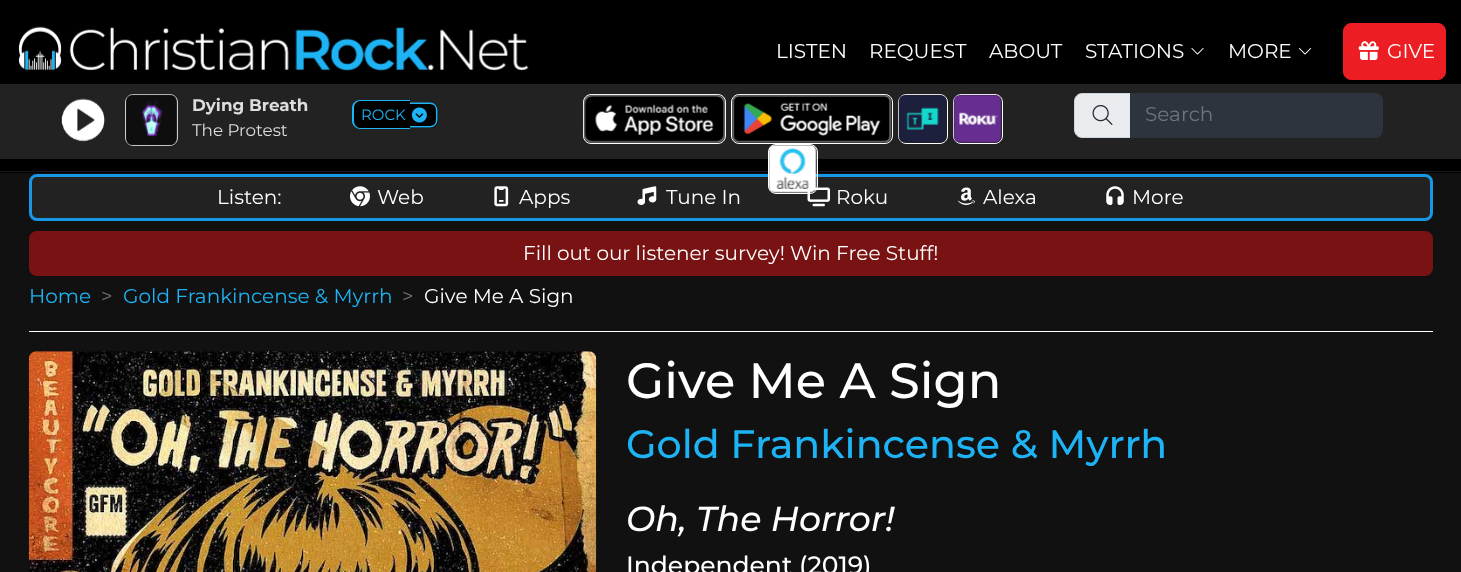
<svg xmlns="http://www.w3.org/2000/svg" width="1461" height="572">
<rect width="100%" height="100%" fill="#111"/>
<rect width="1461" height="173" fill="#000"/>
<rect y="171" width="1461" height="1" fill="#1a1a1a"/>
<image x="18" y="26" width="511" height="45" href="media/1.png"/>
<text x="776" y="58" style="font-family:Montserrat;font-size:20px;fill:#fff">LISTEN</text>
<text x="869" y="58" style="font-family:Montserrat;font-size:20px;fill:#fff">REQUEST</text>
<text x="989" y="58" style="font-family:Montserrat;font-size:20px;fill:#fff">ABOUT</text>
<text x="1085" y="58" style="font-family:Montserrat;font-size:20px;fill:#fff">STATIONS</text>
<image x="1191" y="48" width="13" height="7" href="media/2.png"/>
<text x="1228" y="58" style="font-family:Montserrat;font-size:20px;fill:#fff">MORE</text>
<image x="1298" y="48" width="14" height="7" href="media/3.png"/>
<rect x="1343.5" y="23.5" width="102" height="56" rx="7.5" fill="#ed1d24" stroke="#ed1d24"/>
<image x="1358" y="41" width="21" height="19" href="media/4.png"/>
<text x="1387" y="58" style="font-family:Montserrat;font-size:20px;fill:#fff">GIVE</text>
<rect y="84" width="1461" height="75" fill="#222"/>
<image x="61" y="98" width="44" height="44" href="media/5.png"/>
<rect x="125.5" y="94.5" width="52" height="51" rx="7.5" fill="none" stroke="#ccc"/>
<image x="126" y="94" width="50" height="52" href="media/6.png"/>
<text x="192" y="111" style="font-family:Montserrat;font-size:16.75px;font-weight:bold;fill:#ddd">Dying Breath</text>
<text x="192" y="136" style="font-family:Montserrat;font-size:16.75px;fill:#ddd">The Protest</text>
<path d="M361 100h49v29h-49c-4.5 0-8-3.5-8-8v-13c0-4.5 3.5-8 8-8z" fill="#000"/>
<path d="M360 100h50v29h-50c-4 0-8-4-8-8v-13c0-5 4-8 8-8zm0 1h50v27h-50c-3 0-6-3-6-7v-13c0-4 3-7 6-7z" fill="#1eb3f4" fill-rule="evenodd"/>
<path d="M410 103h20c4.5 0 8 3.5 8 8v9c0 4.5-3.5 8-8 8h-20z" fill="#000"/>
<path d="M410 102.5h20c4 0 7.5 3.5 7.5 7.5v10c0 4-3.5 7.5-7.5 7.5h-20zm0 1.5h16.5c10 0 9.5 2.5 9.5 11c0 8.5 .5 11-9.5 11h-16.5z" fill="#1eb3f4" fill-rule="evenodd"/>
<text x="361" y="120" style="font-family:Montserrat;font-size:15px;fill:#1eb3f4">ROCK</text>
<image x="411" y="107" width="16" height="16" href="media/7.png"/>
<rect x="583.5" y="94.5" width="142" height="49" rx="7.5" fill="none" stroke="#fff"/>
<image x="583" y="94" width="143" height="49" href="media/8.png"/>
<rect x="731.5" y="94.5" width="161" height="49" rx="7.5" fill="none" stroke="#fff"/>
<image x="732" y="94" width="160" height="49" href="media/9.png"/>
<rect x="898.5" y="94.5" width="49" height="49" rx="7.5" fill="none" stroke="#fff"/>
<image x="898" y="94" width="49" height="49" href="media/10.png"/>
<rect x="953.5" y="94.5" width="49" height="49" rx="7.5" fill="none" stroke="#fff"/>
<image x="953" y="94" width="49" height="49" href="media/11.png"/>
<rect x="30.5" y="175.5" width="1401" height="44" rx="6.5" fill="#222" stroke="#1997e5" stroke-width="3"/>
<image x="807" y="187" width="23" height="20" href="media/17.png"/>
<rect x="768.5" y="144.5" width="49" height="49" rx="7.5" fill="none" stroke="#fff"/>
<image x="768" y="144" width="49" height="49" href="media/12.png"/>
<path d="M1082 93.5h48.5v44h-48.5c-4 0-7.5-3.5-7.5-7.5v-29c0-4 3.5-7.5 7.5-7.5z" fill="#e9ecef" stroke="#ced4da"/>
<image x="1092" y="105" width="21" height="20" href="media/13.png"/>
<path d="M1130 93h245c4.5 0 8 3.5 8 8v29c0 4.5-3.5 8-8 8h-245z" fill="#2d343d"/>
<text x="1145" y="121" style="font-family:Montserrat;font-size:20px;fill:#6c757d">Search</text>
<text x="217" y="204" style="font-family:Montserrat;font-size:20px;fill:#fff">Listen:</text>
<image x="350" y="186" width="20" height="21" href="media/14.png"/>
<text x="377" y="204" style="font-family:Montserrat;font-size:20px;fill:#fff">Web</text>
<image x="494" y="186" width="15" height="21" href="media/15.png"/>
<text x="519" y="204" style="font-family:Montserrat;font-size:20px;fill:#fff">Apps</text>
<image x="637" y="186" width="20" height="19" href="media/16.png"/>
<text x="666" y="204" style="font-family:Montserrat;font-size:20px;fill:#fff">Tune In</text>
<text x="836" y="204" style="font-family:Montserrat;font-size:20px;fill:#fff">Roku</text>
<image x="957" y="187" width="18" height="18" href="media/18.png"/>
<text x="983" y="204" style="font-family:Montserrat;font-size:20px;fill:#fff">Alexa</text>
<image x="1106" y="186" width="18" height="19" href="media/19.png"/>
<text x="1132" y="204" style="font-family:Montserrat;font-size:20px;fill:#fff">More</text>
<rect x="30.5" y="232.5" width="1401" height="42" rx="6.5" fill="#791313" stroke="#791313" stroke-width="3"/>
<text x="523" y="260" style="font-family:Montserrat;font-size:20px;fill:#fff">Fill out our listener survey! Win Free Stuff!</text>
<text x="29" y="303" style="font-family:Montserrat;font-size:20px;fill:#1eb3f4">Home</text>
<text x="101" y="303" style="font-family:Montserrat;font-size:20px;fill:#6c757d">&gt;</text>
<text x="123" y="303" style="font-family:Montserrat;font-size:20px;fill:#1eb3f4">Gold Frankincense &amp; Myrrh</text>
<text x="402" y="303" style="font-family:Montserrat;font-size:20px;fill:#6c757d">&gt;</text>
<text x="424" y="303" style="font-family:Montserrat;font-size:20px;fill:#fff">Give Me A Sign</text>
<rect x="29" y="331" width="1404" height="1" fill="#fff"/>
<image x="28" y="351" width="569" height="221" href="media/20.png"/>
<text x="626" y="398" style="font-family:Montserrat;font-size:49.5px;font-weight:500;fill:#fff">Give Me A Sign</text>
<text x="626" y="458" style="font-family:Montserrat;font-size:39.6px;font-weight:500;fill:#1eb3f4">Gold Frankincense &amp; Myrrh</text>
<text x="626" y="531" style="font-family:Montserrat;font-size:34.75px;font-weight:500;font-style:italic;fill:#fff">Oh, The Horror!</text>
<text x="626" y="574" style="font-family:Montserrat;font-size:25px;font-weight:500;fill:#fff">Independent (2019)</text>
</svg>
